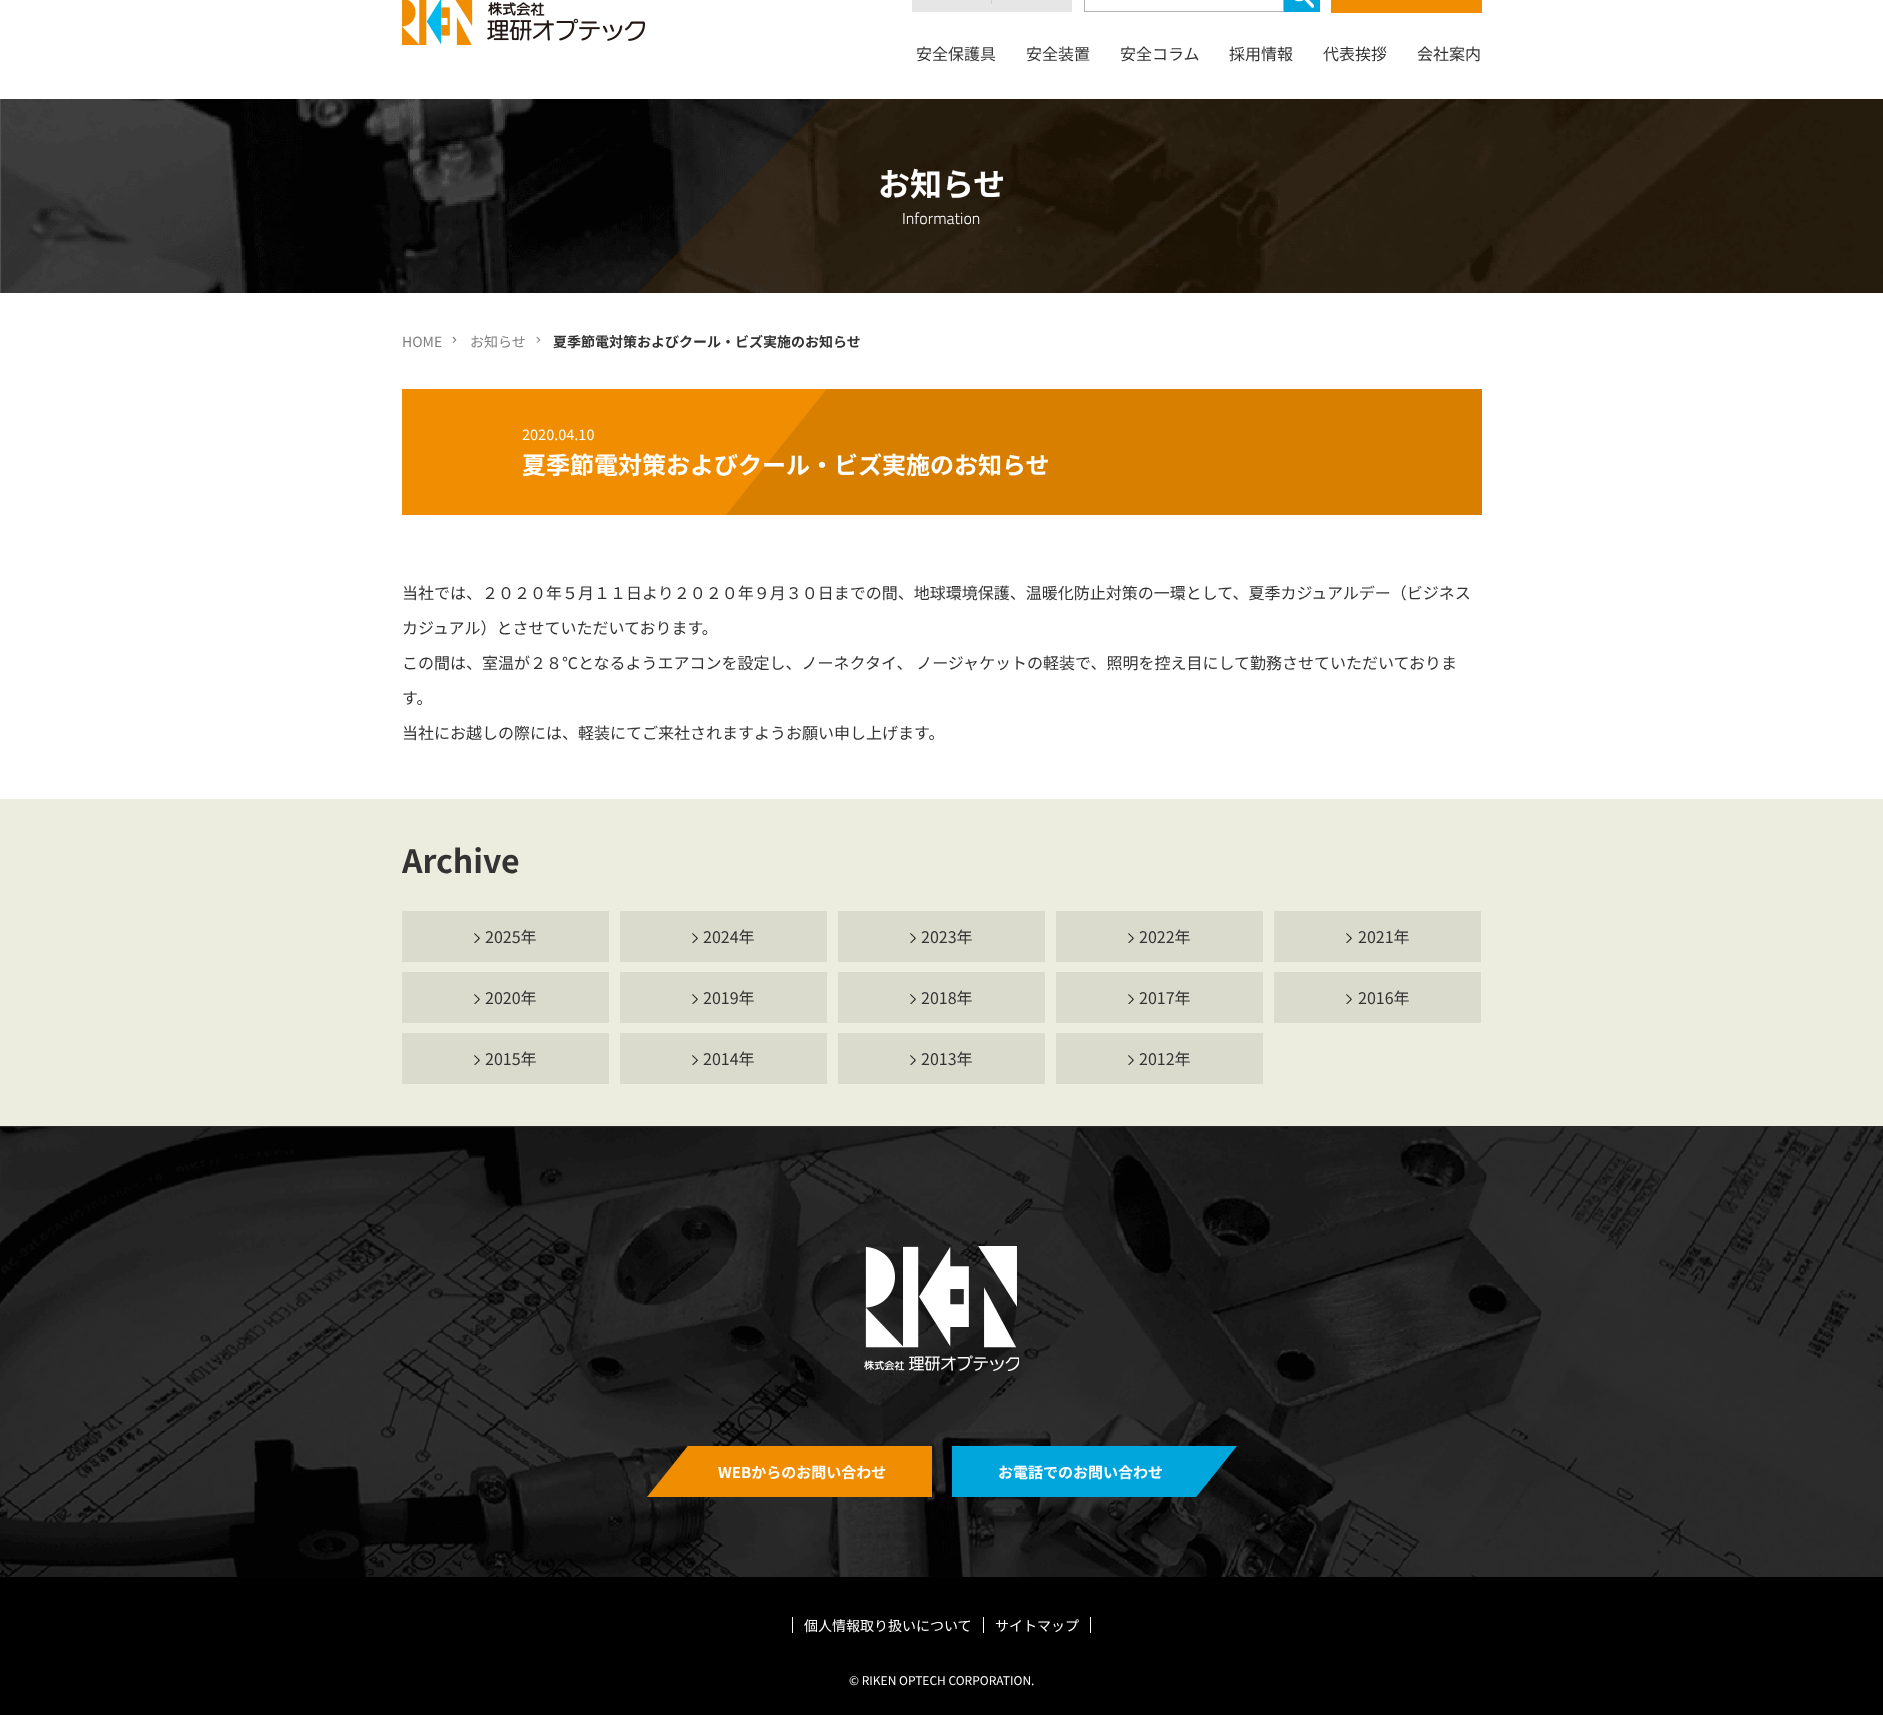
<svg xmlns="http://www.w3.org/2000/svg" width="1883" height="1715">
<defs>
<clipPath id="clip1"><rect x="402" y="389" width="1080" height="126"/></clipPath>
<clipPath id="clip2"><rect x="647" y="1446" width="285" height="51"/></clipPath>
<clipPath id="clip3"><rect x="952" y="1446" width="285" height="51"/></clipPath>
</defs>
<rect width="100%" height="100%" fill="#fff"/>
<image x="402" y="0" width="243" height="45" href="media/1.png"/>
<rect x="912" width="160" height="12" fill="#e6e6e6"/>
<rect x="991" width="1" height="4" fill="#cfcfcf"/>
<rect x="1084.5" y="-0.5" width="199" height="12" fill="none" stroke="#b3b3b3"/>
<rect x="1284" width="36" height="12" fill="#00a6dc"/>
<image x="1294" y="0" width="20" height="8" href="media/2.png"/>
<rect x="1331" width="151" height="13" fill="#f18d00"/>
<text x="916" y="60" style="font-family:Noto Sans JP;font-size:16px;fill:#333">安全保護具</text>
<text x="1026" y="60" style="font-family:Noto Sans JP;font-size:16px;fill:#333">安全装置</text>
<text x="1120" y="60" style="font-family:Noto Sans JP;font-size:16px;fill:#333">安全コラム</text>
<text x="1229" y="60" style="font-family:Noto Sans JP;font-size:16px;fill:#333">採用情報</text>
<text x="1323" y="60" style="font-family:Noto Sans JP;font-size:16px;fill:#333">代表挨拶</text>
<text x="1417" y="60" style="font-family:Noto Sans JP;font-size:16px;fill:#333">会社案内</text>
<image x="0" y="99" width="1883" height="194" href="media/3.png"/>
<text x="878" y="196" style="font-family:Noto Sans JP;font-size:32px;font-weight:bold;fill:#fff">お知らせ</text>
<text x="902" y="224" style="font-family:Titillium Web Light;font-size:16px;font-weight:300;fill:#fff">Information</text>
<text x="402" y="347" style="font-family:Noto Sans JP;font-size:14px;fill:#808080">HOME</text>
<path d="M453.5 336.5l3 3.5h-1.5l-2.5-2.5zm3 3.5l-3 3l-1-.5l2.5-2.5z" fill="#808080"/>
<text x="470" y="347" style="font-family:Noto Sans JP;font-size:14px;fill:#808080">お知らせ</text>
<path d="M537 336.5l3.5 3.5h-1.5l-2.5-2.5zm3.5 3.5l-3.5 3l-.5-.5l2.5-2.5z" fill="#808080"/>
<text x="553" y="347" style="font-family:Noto Sans JP;font-size:14px;font-weight:bold;fill:#333">夏季節電対策およびクール・ビズ実施のお知らせ</text>
<rect x="402" y="389" width="425" height="126" fill="#f18d00"/>
<text x="522" y="440" style="font-family:Noto Sans JP;font-size:14.5px;fill:#fff">2020.04.10</text>
<g clip-path="url(#clip1)">
<path d="M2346 515h-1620l240-300h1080z" fill="#d97f00"/>
</g>
<text x="522" y="474" style="font-family:Noto Sans JP;font-size:24px;font-weight:bold;fill:#fff">夏季節電対策およびクール・ビズ実施のお知らせ</text>
<text x="402" y="599" style="font-family:Noto Sans JP;font-size:16px;fill:#333">当社では、２０２０年５月１１日より２０２０年９月３０日までの間、地球環境保護、温暖化防止対策の一環として、夏季カジュアルデー（ビジネス</text>
<text x="402" y="634" style="font-family:Noto Sans JP;font-size:16px;fill:#333">カジュアル）とさせていただいております。</text>
<text x="402" y="669" style="font-family:Noto Sans JP;font-size:16px;fill:#333">この間は、室温が２８℃となるようエアコンを設定し、ノーネクタイ、 ノージャケットの軽装で、照明を控え目にして勤務させていただいておりま</text>
<text x="402" y="704" style="font-family:Noto Sans JP;font-size:16px;fill:#333">す。</text>
<text x="402" y="739" style="font-family:Noto Sans JP;font-size:16px;fill:#333">当社にお越しの際には、軽装にてご来社されますようお願い申し上げます。</text>
<rect y="799" width="1883" height="327" fill="#ededdf"/>
<text x="402" y="873" style="font-family:Noto Sans JP;font-size:32px;font-weight:bold;fill:#333">Archive</text>
<rect x="402" y="911" width="207" height="51" fill="#dadacd"/>
<image x="474" y="933" width="6" height="10" href="media/4.png"/>
<text x="485" y="943" style="font-family:Noto Sans JP;font-size:16px;fill:#333">2025年</text>
<rect x="620" y="911" width="207" height="51" fill="#dadacd"/>
<image x="692" y="933" width="6" height="10" href="media/4.png"/>
<text x="703" y="943" style="font-family:Noto Sans JP;font-size:16px;fill:#333">2024年</text>
<rect x="838" y="911" width="207" height="51" fill="#dadacd"/>
<image x="910" y="933" width="6" height="10" href="media/4.png"/>
<text x="921" y="943" style="font-family:Noto Sans JP;font-size:16px;fill:#333">2023年</text>
<rect x="1056" y="911" width="207" height="51" fill="#dadacd"/>
<image x="1128" y="933" width="6" height="10" href="media/4.png"/>
<text x="1139" y="943" style="font-family:Noto Sans JP;font-size:16px;fill:#333">2022年</text>
<rect x="1274" y="911" width="207" height="51" fill="#dadacd"/>
<image x="1346" y="933" width="6" height="10" href="media/4.png"/>
<text x="1358" y="943" style="font-family:Noto Sans JP;font-size:16px;fill:#333">2021年</text>
<rect x="402" y="972" width="207" height="51" fill="#dadacd"/>
<image x="474" y="994" width="6" height="10" href="media/4.png"/>
<text x="485" y="1004" style="font-family:Noto Sans JP;font-size:16px;fill:#333">2020年</text>
<rect x="620" y="972" width="207" height="51" fill="#dadacd"/>
<image x="692" y="994" width="6" height="10" href="media/4.png"/>
<text x="703" y="1004" style="font-family:Noto Sans JP;font-size:16px;fill:#333">2019年</text>
<rect x="838" y="972" width="207" height="51" fill="#dadacd"/>
<image x="910" y="994" width="6" height="10" href="media/4.png"/>
<text x="921" y="1004" style="font-family:Noto Sans JP;font-size:16px;fill:#333">2018年</text>
<rect x="1056" y="972" width="207" height="51" fill="#dadacd"/>
<image x="1128" y="994" width="6" height="10" href="media/4.png"/>
<text x="1139" y="1004" style="font-family:Noto Sans JP;font-size:16px;fill:#333">2017年</text>
<rect x="1274" y="972" width="207" height="51" fill="#dadacd"/>
<image x="1346" y="994" width="6" height="10" href="media/4.png"/>
<text x="1358" y="1004" style="font-family:Noto Sans JP;font-size:16px;fill:#333">2016年</text>
<rect x="402" y="1033" width="207" height="51" fill="#dadacd"/>
<image x="474" y="1055" width="6" height="10" href="media/4.png"/>
<text x="485" y="1065" style="font-family:Noto Sans JP;font-size:16px;fill:#333">2015年</text>
<rect x="620" y="1033" width="207" height="51" fill="#dadacd"/>
<image x="692" y="1055" width="6" height="10" href="media/4.png"/>
<text x="703" y="1065" style="font-family:Noto Sans JP;font-size:16px;fill:#333">2014年</text>
<rect x="838" y="1033" width="207" height="51" fill="#dadacd"/>
<image x="910" y="1055" width="6" height="10" href="media/4.png"/>
<text x="921" y="1065" style="font-family:Noto Sans JP;font-size:16px;fill:#333">2013年</text>
<rect x="1056" y="1033" width="207" height="51" fill="#dadacd"/>
<image x="1128" y="1055" width="6" height="10" href="media/4.png"/>
<text x="1139" y="1065" style="font-family:Noto Sans JP;font-size:16px;fill:#333">2012年</text>
<image x="0" y="1126" width="1883" height="451" href="media/5.png"/>
<image x="864" y="1246" width="155" height="125" href="media/6.png"/>
<g clip-path="url(#clip2)">
<path d="M1126 1497h-479l80-100h199z" fill="#f18d00"/>
</g>
<text x="718" y="1478" style="font-family:Noto Sans JP;font-size:15px;font-weight:bold;fill:#fff">WEBからのお問い合わせ</text>
<g clip-path="url(#clip3)">
<path d="M857 1446h380l-80 100h-200z" fill="#00a6dc"/>
</g>
<text x="998" y="1478" style="font-family:Noto Sans JP;font-size:15px;font-weight:bold;fill:#fff">お電話でのお問い合わせ</text>
<rect y="1577" width="1883" height="138" fill="#000"/>
<rect x="983" y="1617" width="1" height="16" fill="#fff"/>
<rect x="792" y="1617" width="1" height="16" fill="#fff"/>
<text x="804" y="1631" style="font-family:Noto Sans JP;font-size:14px;fill:#fff">個人情報取り扱いについて</text>
<rect x="1090" y="1617" width="1" height="16" fill="#fff"/>
<text x="995" y="1631" style="font-family:Noto Sans JP;font-size:14px;fill:#fff">サイトマップ</text>
<text x="849" y="1685" style="font-family:Noto Sans JP;font-size:12px;fill:#fff">© RIKEN OPTECH CORPORATION.</text>
</svg>
